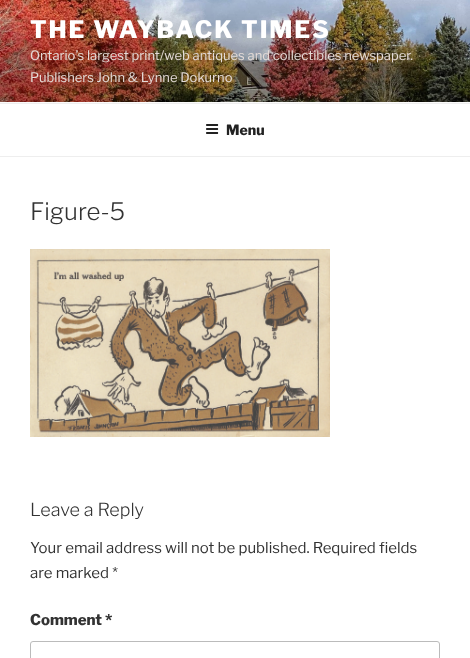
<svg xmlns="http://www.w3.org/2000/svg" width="470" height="658">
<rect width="100%" height="100%" fill="#fff"/>
<rect y="102" width="470" height="1" fill="#fafafa"/>
<image x="0" y="0" width="470" height="102" href="media/1.png"/>
<text x="30" y="38" style="font-family:Libre Franklin;font-size:24px;font-weight:100;letter-spacing:1.9px;fill:#fff">THE WAYBACK TIMES</text>
<text x="30" y="60" style="font-family:'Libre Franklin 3';font-size:13px;font-weight:100;fill:#e4dbd7">Ontario’s largest print/web antiques and collectibles newspaper.</text>
<text x="30" y="82" style="font-family:'Libre Franklin 3';font-size:13px;font-weight:100;fill:#e4dbd7">Publishers John &amp; Lynne Dokurno</text>
<rect y="103" width="470" height="1" fill="#eee"/>
<rect y="156" width="470" height="1" fill="#eee"/>
<image x="206" y="124" width="13" height="10" href="media/2.png"/>
<text x="226" y="135" style="font-family:Libre Franklin;font-size:14px;font-weight:100;fill:#222">Menu</text>
<text x="30" y="220" style="font-family:'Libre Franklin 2';font-size:24px;font-weight:100;fill:#333">Figure-5</text>
<image x="30" y="249" width="300" height="188" href="media/3.png"/>
<text x="30" y="516" style="font-family:'Libre Franklin 2';font-size:18px;font-weight:100;fill:#333">Leave a Reply</text>
<text x="30" y="553" style="font-family:'Libre Franklin 3';font-size:15px;font-weight:100;fill:#333">Your email address will not be published. Required fields</text>
<text x="30" y="578" style="font-family:'Libre Franklin 3';font-size:15px;font-weight:100;fill:#333">are marked *</text>
<text x="30" y="625" style="font-family:Libre Franklin;font-size:15px;font-weight:100;fill:#333">Comment *</text>
<rect x="30.5" y="641.5" width="409" height="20" rx="2.5" fill="none" stroke="#bbb"/>
</svg>
